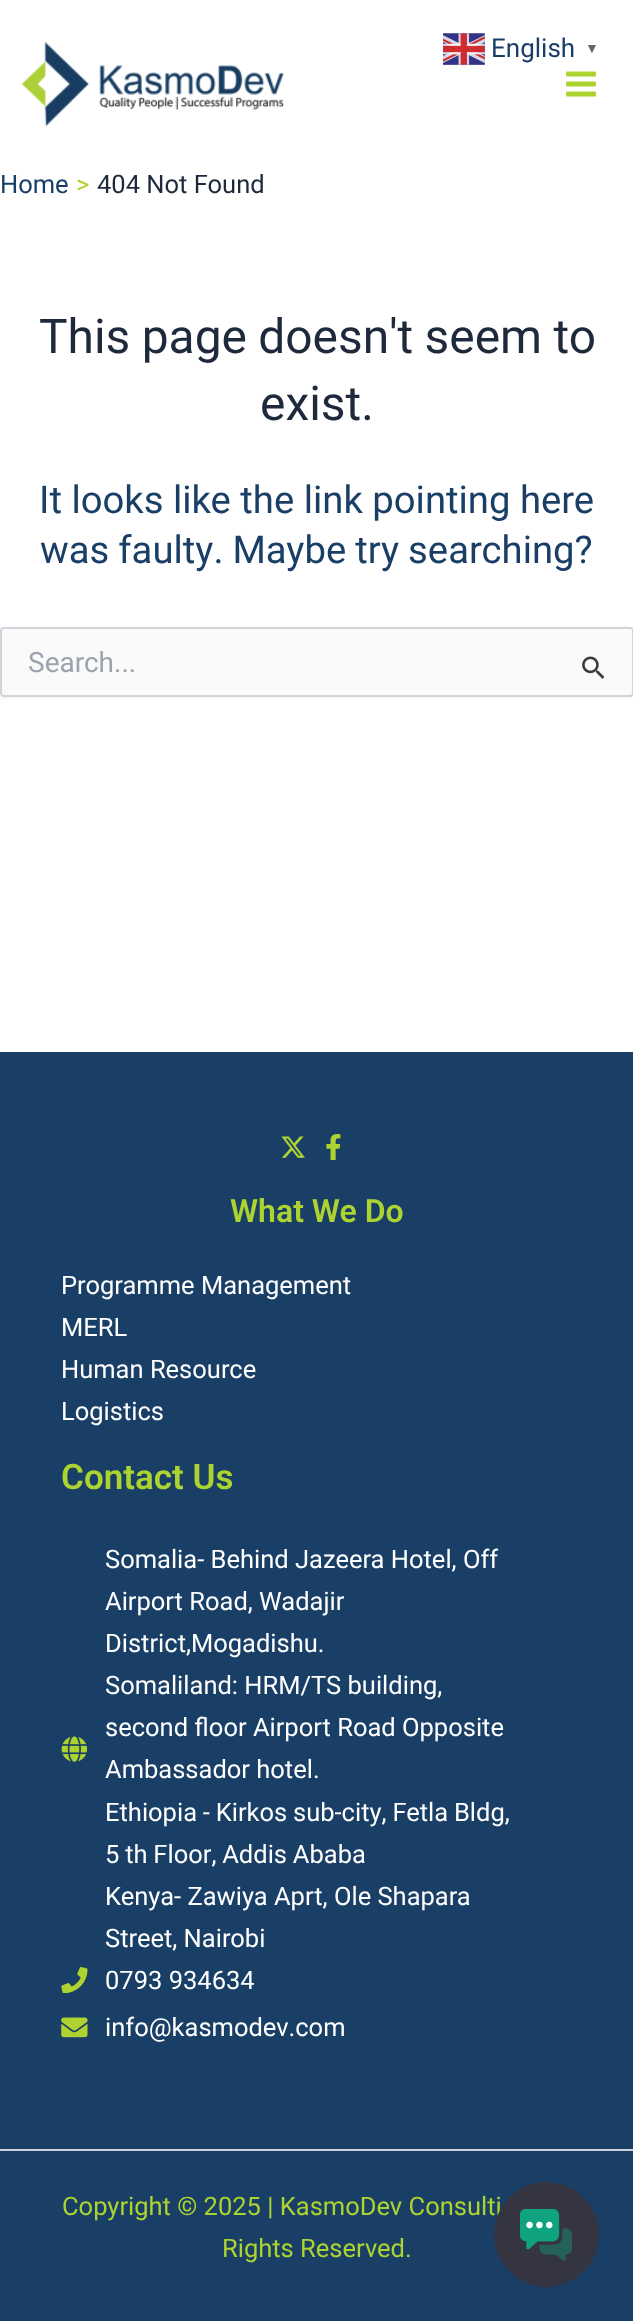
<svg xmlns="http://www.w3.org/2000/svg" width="633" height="2321">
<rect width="100%" height="100%" fill="#fff"/>
<image x="443" y="33" width="42" height="32" href="media/1.png"/>
<text x="491" y="57" style="font-family:Roboto;font-size:26px;fill:#1a3f66">English</text>
<text x="585" y="53" style="font-family:Liberation Sans;font-size:14px;font-weight:bold;fill:#666">▼</text>
<image x="21" y="42" width="264" height="84" href="media/2.png"/>
<image x="566" y="71" width="30" height="26" href="media/3.png"/>
<text x="0" y="193" style="font-family:Roboto;font-size:25.5px;fill:#1a3f66">Home</text>
<text x="76" y="193" style="font-family:Roboto;font-size:25.5px;fill:#add331">&gt;</text>
<text x="97" y="193" style="font-family:Roboto;font-size:25.5px;fill:#1e293b">404 Not Found</text>
<text x="39" y="353" word-spacing="-0.5" style="font-family:Roboto;font-size:47.9px;fill:#1e293b">This page doesn't seem to</text>
<text x="260" y="420" style="font-family:Roboto;font-size:47.9px;fill:#1e293b">exist.</text>
<text x="39" y="513" style="font-family:Roboto;font-size:38.25px;fill:#1a3f66">It looks like the link pointing here</text>
<text x="40" y="563" word-spacing="-0.5" style="font-family:Roboto;font-size:38.25px;fill:#1a3f66">was faulty. Maybe try searching?</text>
<rect y="628" width="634" height="70" rx="4" fill="#0000000d" filter="blur(2px)"/>
<rect x="1" y="628" width="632" height="68" rx="3" fill="#fafafa" stroke="#d1d5db" stroke-width="2"/>
<text x="28" y="672" style="font-family:Roboto;font-size:28px;fill:#9ca3af">Search...</text>
<image x="582" y="656" width="22" height="23" href="media/4.png"/>
<rect y="1052" width="633" height="1097" fill="#1a3f66"/>
<image x="281" y="1136" width="24" height="22" href="media/5.png"/>
<image x="326" y="1134" width="15" height="26" href="media/6.png"/>
<text x="230" y="1222" style="font-family:Roboto;font-size:32px;font-weight:600;fill:#add331">What We Do</text>
<text x="61" y="1294" style="font-family:Roboto;font-size:25.5px;fill:#fff">Programme Management</text>
<text x="61" y="1336" style="font-family:Roboto;font-size:25.5px;fill:#fff">MERL</text>
<text x="61" y="1378" style="font-family:Roboto;font-size:25.5px;fill:#fff">Human Resource</text>
<text x="61" y="1420" style="font-family:Roboto;font-size:25.5px;fill:#fff">Logistics</text>
<text x="61" y="1489" style="font-family:Roboto;font-size:35px;font-weight:600;fill:#add331">Contact Us</text>
<image x="61" y="1736" width="27" height="26" href="media/7.png"/>
<text x="105" y="1568" style="font-family:Roboto;font-size:25.5px;fill:#fff">Somalia- Behind Jazeera Hotel, Off</text>
<text x="105" y="1610" style="font-family:Roboto;font-size:25.5px;fill:#fff">Airport Road, Wadajir</text>
<text x="105" y="1652" style="font-family:Roboto;font-size:25.5px;fill:#fff">District,Mogadishu.</text>
<text x="105" y="1694" style="font-family:Roboto;font-size:25.5px;fill:#fff">Somaliland: HRM/TS building,</text>
<text x="105" y="1736" style="font-family:Roboto;font-size:25.5px;fill:#fff">second floor Airport Road Opposite</text>
<text x="105" y="1778" style="font-family:Roboto;font-size:25.5px;fill:#fff">Ambassador hotel.</text>
<text x="105" y="1821" word-spacing="-0.5" style="font-family:Roboto;font-size:25.5px;fill:#fff">Ethiopia - Kirkos sub-city, Fetla Bldg,</text>
<text x="105" y="1863" word-spacing="-0.5" style="font-family:Roboto;font-size:25.5px;fill:#fff">5 th Floor, Addis Ababa</text>
<text x="105" y="1905" style="font-family:Roboto;font-size:25.5px;fill:#fff">Kenya- Zawiya Aprt, Ole Shapara</text>
<text x="105" y="1947" style="font-family:Roboto;font-size:25.5px;fill:#fff">Street, Nairobi</text>
<image x="61" y="1967" width="27" height="26" href="media/8.png"/>
<text x="105" y="1989" style="font-family:Roboto;font-size:25.5px;fill:#fff">0793 934634</text>
<image x="61" y="2017" width="27" height="21" href="media/9.png"/>
<text x="105" y="2036" style="font-family:Roboto;font-size:25.5px;fill:#fff">info@kasmodev.com</text>
<rect y="2151" width="633" height="170" fill="#1a3f66"/>
<rect y="2149" width="633" height="2" fill="#d1d5db"/>
<text x="62" y="2215" style="font-family:Roboto;font-size:25.5px;fill:#add331">Copyright © 2025 | KasmoDev Consulti</text>
<text x="222" y="2257" style="font-family:Roboto;font-size:25.5px;fill:#add331">Rights Reserved.</text>
<circle cx="546.5" cy="2234.5" r="52.5" fill="#343541"/>
<image x="520" y="2209" width="52" height="52" href="media/10.png"/>
</svg>
